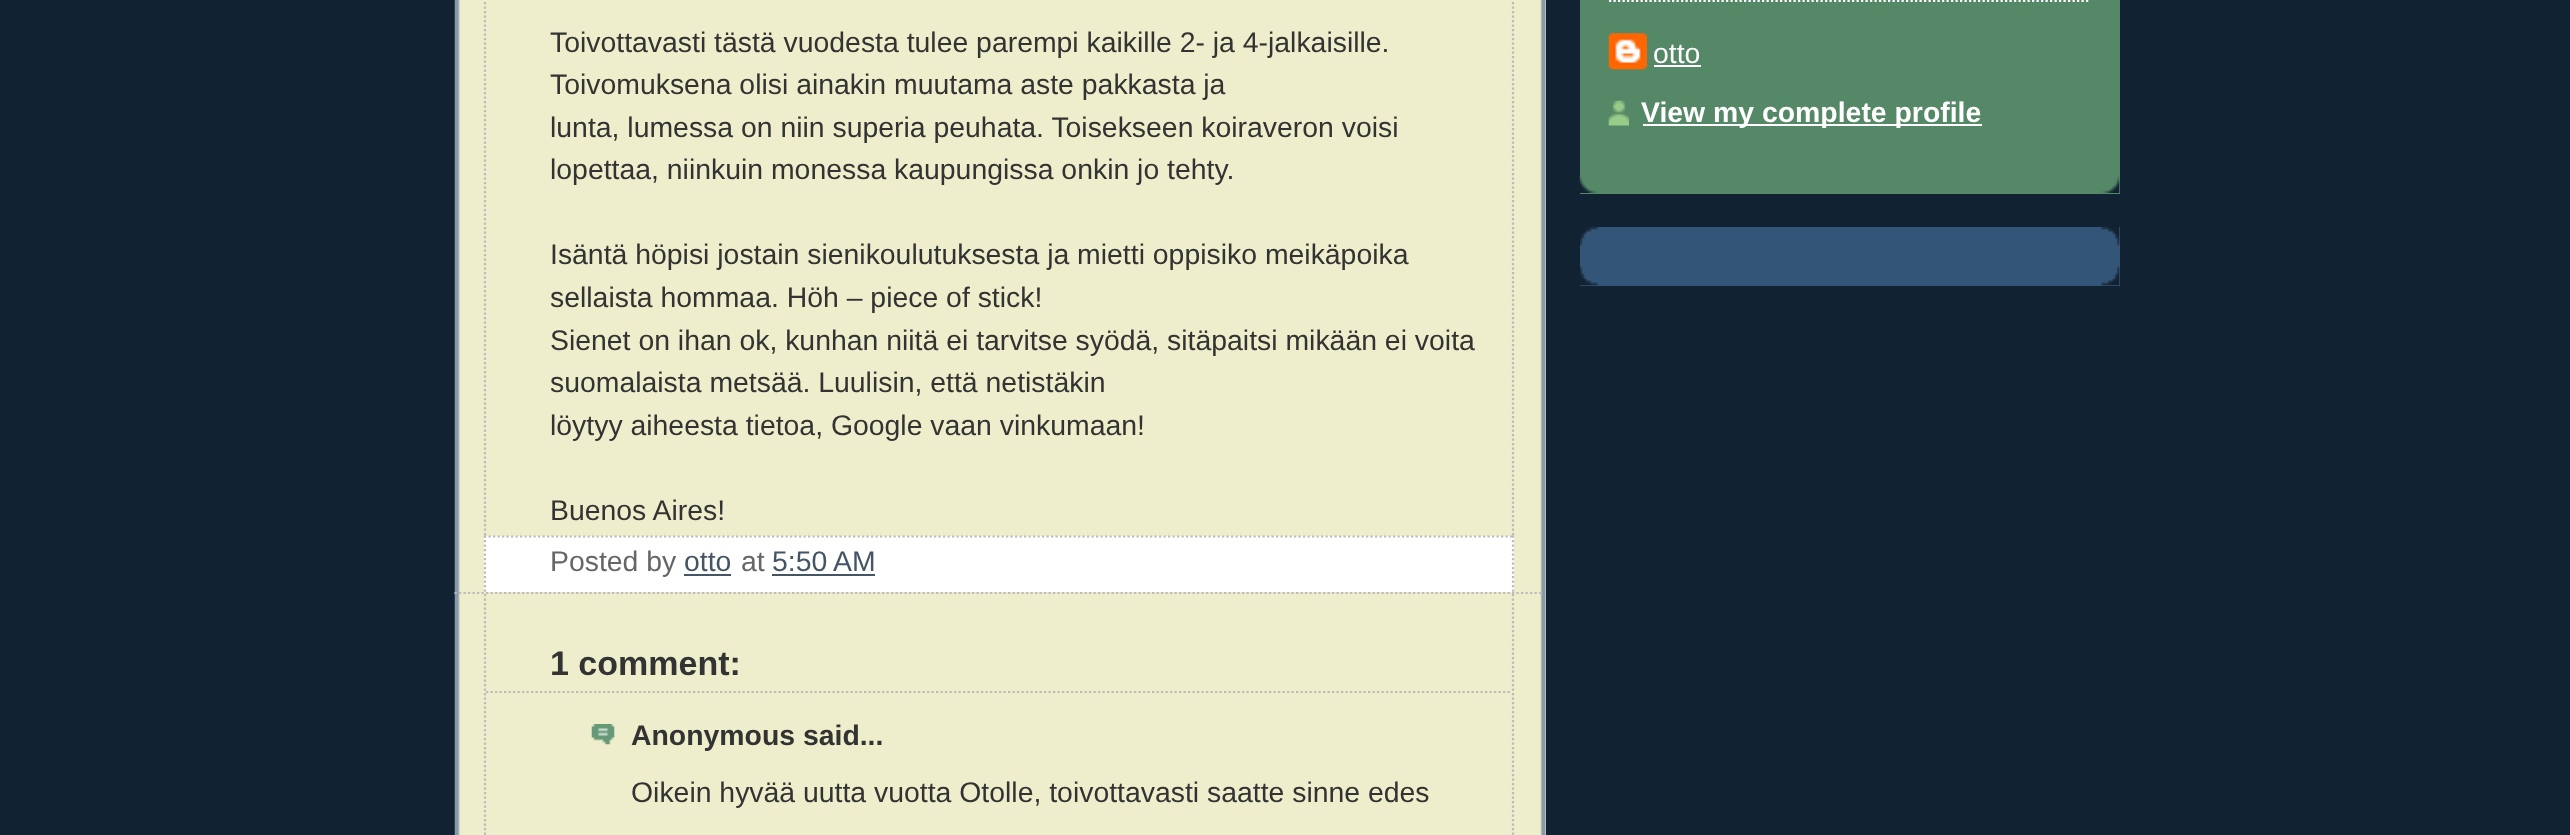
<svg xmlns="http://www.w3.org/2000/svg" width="2570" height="835">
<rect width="100%" height="100%" fill="#123"/>
<rect x="458" width="1088" height="835" fill="#eec"/>
<image x="454" y="0" width="1092" height="835" href="media/1.png"/>
<path d="M454.5 593h1089" fill="none" stroke="#bbb" stroke-width="2.2" stroke-dasharray="2.25 2.25"/>
<path d="M1513-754v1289.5" fill="none" stroke="#bbb" stroke-width="2.2" stroke-dasharray="2.25 2.25"/>
<path d="M485-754v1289.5" fill="none" stroke="#bbb" stroke-width="2.2" stroke-dasharray="2.25 2.25"/>
<text x="550" y="52" style="font-family:Liberation Sans;font-size:28.4px;fill:#333">Toivottavasti tästä vuodesta tulee parempi kaikille 2- ja 4-jalkaisille.</text>
<text x="550" y="94" style="font-family:Liberation Sans;font-size:28.4px;fill:#333">Toivomuksena olisi ainakin muutama aste pakkasta ja</text>
<text x="550" y="137" style="font-family:Liberation Sans;font-size:28.4px;fill:#333">lunta, lumessa on niin superia peuhata. Toisekseen koiraveron voisi</text>
<text x="550" y="179" style="font-family:Liberation Sans;font-size:28.4px;fill:#333">lopettaa, niinkuin monessa kaupungissa onkin jo tehty.</text>
<text x="550" y="264" style="font-family:Liberation Sans;font-size:28.4px;fill:#333">Isäntä höpisi jostain sienikoulutuksesta ja mietti oppisiko meikäpoika</text>
<text x="550" y="307" style="font-family:Liberation Sans;font-size:28.4px;fill:#333">sellaista hommaa. Höh – piece of stick!</text>
<text x="550" y="350" style="font-family:Liberation Sans;font-size:28.4px;fill:#333">Sienet on ihan ok, kunhan niitä ei tarvitse syödä, sitäpaitsi mikään ei voita</text>
<text x="550" y="392" style="font-family:Liberation Sans;font-size:28.4px;fill:#333">suomalaista metsää. Luulisin, että netistäkin</text>
<text x="550" y="435" style="font-family:Liberation Sans;font-size:28.4px;fill:#333">löytyy aiheesta tietoa, Google vaan vinkumaan!</text>
<text x="550" y="520" style="font-family:Liberation Sans;font-size:28.4px;fill:#333">Buenos Aires!</text>
<rect x="484" y="536" width="1030" height="56" fill="#fff"/>
<path d="M484 536.5h1030" fill="none" stroke="#bbb" stroke-width="2.2" stroke-dasharray="2.25 2.25"/>
<path d="M1513 535.5v56.5" fill="none" stroke="#bbb" stroke-width="2.2" stroke-dasharray="2.25 2.25"/>
<path d="M485 535.5v56.5" fill="none" stroke="#bbb" stroke-width="2.2" stroke-dasharray="2.25 2.25"/>
<text x="550" y="571" style="font-family:Liberation Sans;font-size:28.4px;fill:#666">Posted by</text>
<text x="684" y="571" style="font-family:Liberation Sans;font-size:28.4px;fill:#456">otto</text>
<rect x="684" y="574" width="47" height="2" fill="#456"/>
<text x="741" y="571" style="font-family:Liberation Sans;font-size:28.4px;fill:#666">at</text>
<text x="772" y="571" style="font-family:Liberation Sans;font-size:28.4px;fill:#456">5:50 AM</text>
<path d="M772 575h103.5" fill="none" stroke="#456" stroke-width="2.2" stroke-dasharray="2.25 2.25"/>
<rect x="772" y="574" width="103" height="2" fill="#456"/>
<path d="M1513 594v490.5" fill="none" stroke="#bbb" stroke-width="2.2" stroke-dasharray="2.25 2.25"/>
<path d="M485 594v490.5" fill="none" stroke="#bbb" stroke-width="2.2" stroke-dasharray="2.25 2.25"/>
<path d="M486 692h1026" fill="none" stroke="#bbb" stroke-width="2.2" stroke-dasharray="2.25 2.25"/>
<text x="550" y="675" style="font-family:Liberation Sans;font-size:34px;font-weight:bold;fill:#333">1 comment:</text>
<image x="591" y="724" width="24" height="21" href="media/2.png"/>
<text x="631" y="745" style="font-family:Liberation Sans;font-size:28.4px;font-weight:bold;fill:#333">Anonymous said...</text>
<text x="631" y="802" style="font-family:Liberation Sans;font-size:28.4px;fill:#333">Oikein hyvää uutta vuotta Otolle, toivottavasti saatte sinne edes</text>
<rect x="1580" width="540" height="194" fill="#586"/>
<image x="1579" y="175" width="541" height="18" href="media/3.png"/>
<path d="M1609 1h481" fill="none" stroke="#fff" stroke-width="2.2" stroke-dasharray="2.25 2.25"/>
<image x="1608" y="33" width="39" height="37" href="media/4.png"/>
<text x="1653" y="63" style="font-family:Liberation Sans;font-size:28.4px;fill:#fff">otto</text>
<rect x="1654" y="65" width="47" height="2" fill="#fff"/>
<image x="1608" y="100" width="21" height="26" href="media/5.png"/>
<rect x="1643" y="124" width="339" height="2" fill="#fff"/>
<text x="1641" y="122" style="font-family:Liberation Sans;font-size:28.4px;font-weight:bold;fill:#fff">View my complete profile</text>
<rect x="1580" y="227" width="540" height="59" fill="#357"/>
<image x="1580" y="226" width="540" height="20" href="media/6.png"/>
<image x="1579" y="266" width="541" height="20" href="media/7.png"/>
</svg>
